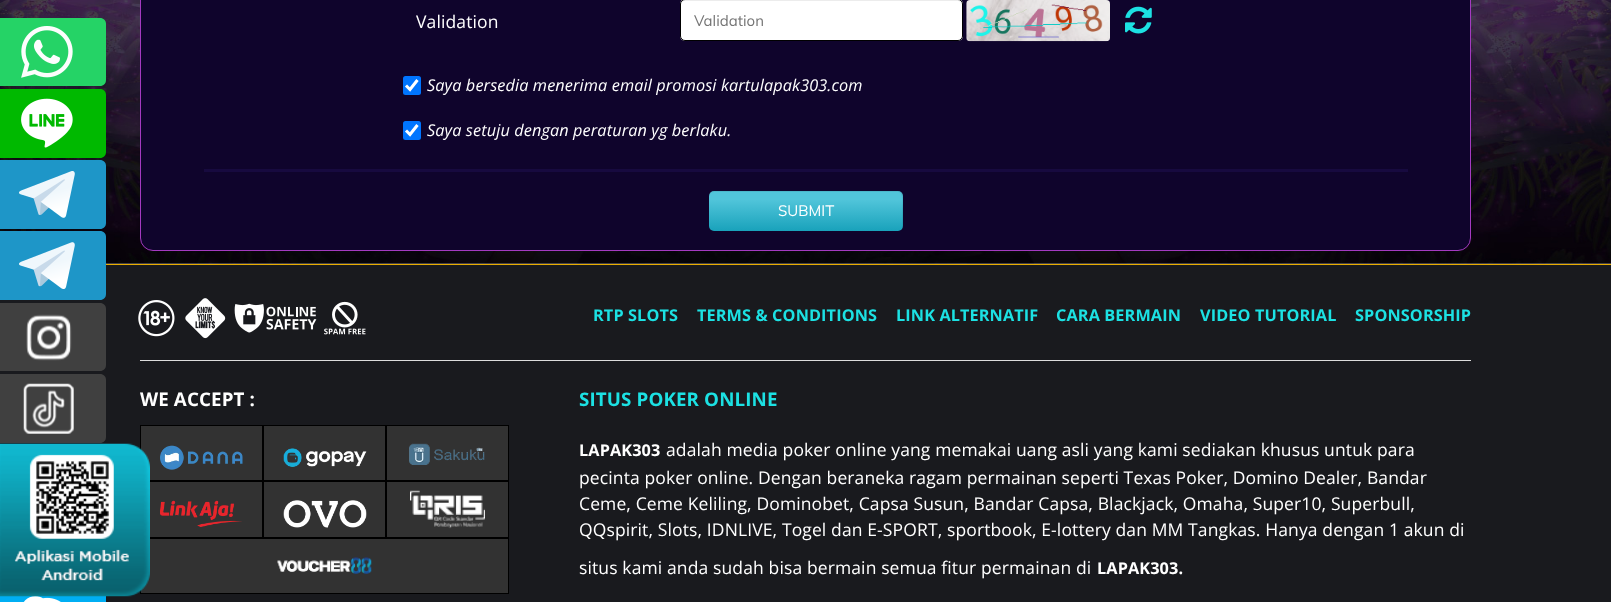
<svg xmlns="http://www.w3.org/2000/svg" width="1611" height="602">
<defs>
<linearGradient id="g1" gradientUnits="userSpaceOnUse" x1="806" y1="191" x2="806" y2="231"><stop offset="0.21" stop-color="#51c5da"/><stop offset="1" stop-color="#19a2bb"/></linearGradient>
</defs>
<rect width="100%" height="100%" fill="#fff"/>
<image x="0" y="0" width="1611" height="264" href="media/8.png"/>
<path d="M0 18h100c3.5 0 6 2.5 6 6v56c0 3.5-2.5 6-6 6h-100z" fill="#25d366"/>
<image x="21" y="26" width="52" height="52" href="media/1.png"/>
<path d="M0 89h100c3.5 0 6 2.5 6 6v57c0 3.5-2.5 6-6 6h-100z" fill="#00b900"/>
<image x="21" y="98" width="52" height="50" href="media/2.png"/>
<path d="M0 160h100c3.5 0 6 2.5 6 6v57c0 3.5-2.5 6-6 6h-100z" fill="#1e96c8"/>
<image x="19" y="171" width="56" height="47" href="media/3.png"/>
<rect y="265" width="1611" height="337" fill="#191a1e"/>
<path d="M0 231h100c3.5 0 6 2.5 6 6v57c0 3.5-2.5 6-6 6h-100z" fill="#1e96c8"/>
<image x="19" y="242" width="56" height="47" href="media/4.png"/>
<path d="M0 303h100c3.5 0 6 2.5 6 6v56c0 3.5-2.5 6-6 6h-100z" fill="#404040"/>
<image x="26" y="314" width="46" height="47" href="media/5.png"/>
<path d="M0 374h100c3.5 0 6 2.5 6 6v57c0 3.5-2.5 6-6 6h-100z" fill="#404040"/>
<image x="23" y="383" width="51" height="51" href="media/6.png"/>
<rect y="596" width="106" height="6" fill="#00aef3"/>
<image x="23" y="596" width="38" height="6" href="media/7.png"/>
<rect x="106" y="264" width="1505" height="1" fill="#e9ad00"/>
<rect x="140.5" y="-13.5" width="1330" height="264" rx="12.5" fill="#0f042c" stroke="#a43ac0"/>
<rect x="204" y="169" width="1204" height="3" fill="#170a3f"/>
<text x="416" y="28" style="font-family:Open Sans;font-size:17.5px;letter-spacing:0.12px;fill:#fff">Validation</text>
<rect x="680" y="-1" width="283" height="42" rx="5" fill="#fff"/>
<path d="M685 1h273c2 0 3 2 3 4c0-3-1-5-4-5h-272c-3 0-4 2-4 5c0-2 2-4 4-4z" fill="#ececec"/>
<rect x="680.5" y="-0.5" width="282" height="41" rx="4.5" fill="none" stroke="#000"/>
<text x="694" y="26" style="font-family:Muli;font-size:15px;fill:#757575">Validation</text>
<image x="966" y="0" width="144" height="42" href="media/9.png"/>
<image x="1125" y="6" width="27" height="28" href="media/10.png"/>
<rect x="403" y="76" width="18" height="19" rx="2.5" fill="#0075ff"/>
<path d="M406 85.5l4 4l7.5-9.5" fill="none" stroke="#fff" stroke-width="3"/>
<text x="427" y="91" style="font-family:Open Sans;font-size:16.25px;font-style:italic;letter-spacing:0.12px;fill:#fff">Saya bersedia menerima email promosi kartulapak303.com</text>
<rect x="403" y="121" width="18" height="19" rx="2.5" fill="#0075ff"/>
<path d="M406 130.5l4 4l7.5-9.5" fill="none" stroke="#fff" stroke-width="3"/>
<text x="427" y="136" style="font-family:Open Sans;font-size:16.25px;font-style:italic;letter-spacing:0.12px;fill:#fff">Saya setuju dengan peraturan yg berlaku.</text>
<rect x="709" y="191" width="194" height="40" rx="5" fill="url(#g1)"/>
<path d="M714 192h184c6 0 4 14 4 16v21c1-1 1-2 1-3v-30c0-3-2-5-5-5h-184c-3 0-5 2-5 5v2c0-3 2-6 5-6z" fill="#00000012"/>
<text x="778" y="216" style="font-family:Muli;font-size:15px;fill:#fff">SUBMIT</text>
<image x="138" y="298" width="228" height="41" href="media/11.png"/>
<text x="593" y="321" style="font-family:Open Sans;font-size:16.25px;font-weight:bold;letter-spacing:0.12px;fill:#1ce1e3">RTP SLOTS</text>
<text x="697" y="321" style="font-family:Open Sans;font-size:16.25px;font-weight:bold;letter-spacing:0.12px;fill:#1ce1e3">TERMS &amp; CONDITIONS</text>
<text x="896" y="321" style="font-family:Open Sans;font-size:16.25px;font-weight:bold;letter-spacing:0.12px;fill:#1ce1e3">LINK ALTERNATIF</text>
<text x="1056" y="321" style="font-family:Open Sans;font-size:16.25px;font-weight:bold;letter-spacing:0.12px;fill:#1ce1e3">CARA BERMAIN</text>
<text x="1200" y="321" style="font-family:Open Sans;font-size:16.25px;font-weight:bold;letter-spacing:0.12px;fill:#1ce1e3">VIDEO TUTORIAL</text>
<text x="1355" y="321" style="font-family:Open Sans;font-size:16.25px;font-weight:bold;letter-spacing:0.12px;fill:#1ce1e3">SPONSORSHIP</text>
<rect x="140" y="360" width="1331" height="1" fill="#ddd"/>
<text x="140" y="406" style="font-family:Open Sans;font-size:18.75px;font-weight:bold;letter-spacing:0.12px;fill:#fff">WE ACCEPT :</text>
<rect x="140.5" y="425.5" width="122" height="55" fill="#323232" stroke="#000"/>
<image x="160" y="445" width="83" height="25" href="media/12.png"/>
<rect x="263.5" y="425.5" width="122" height="55" fill="#323232" stroke="#000"/>
<image x="283" y="448" width="84" height="19" href="media/13.png"/>
<rect x="386.5" y="425.5" width="122" height="55" fill="#323232" stroke="#000"/>
<image x="409" y="443" width="76" height="22" href="media/14.png"/>
<rect x="150" y="482" width="112" height="55" fill="#323232"/>
<rect x="140.5" y="481.5" width="122" height="56" fill="none" stroke="#000"/>
<image x="160" y="500" width="82" height="27" href="media/15.png"/>
<rect x="263.5" y="481.5" width="122" height="56" fill="#323232" stroke="#000"/>
<image x="283" y="500" width="84" height="28" href="media/16.png"/>
<rect x="386.5" y="481.5" width="122" height="56" fill="#323232" stroke="#000"/>
<image x="410" y="490" width="75" height="39" href="media/17.png"/>
<rect x="140.5" y="538.5" width="368" height="55" fill="#323232" stroke="#000"/>
<image x="277" y="557" width="95" height="17" href="media/18.png"/>
<text x="579" y="406" style="font-family:Open Sans;font-size:18.75px;font-weight:bold;letter-spacing:0.12px;fill:#1ce1e3">SITUS POKER ONLINE</text>
<text x="579" y="456" style="font-family:Open Sans;font-size:16.25px;font-weight:bold;letter-spacing:0.12px;fill:#fff">LAPAK303</text>
<text x="666" y="456" style="font-family:Open Sans;font-size:17.5px;letter-spacing:0.12px;fill:#fff">adalah media poker online yang memakai uang asli yang kami sediakan khusus untuk para</text>
<text x="579" y="484" style="font-family:Open Sans;font-size:17.5px;letter-spacing:0.12px;fill:#fff">pecinta poker online. Dengan beraneka ragam permainan seperti Texas Poker, Domino Dealer, Bandar</text>
<text x="579" y="510" style="font-family:Open Sans;font-size:17.5px;letter-spacing:0.12px;fill:#fff">Ceme, Ceme Keliling, Dominobet, Capsa Susun, Bandar Capsa, Blackjack, Omaha, Super10, Superbull,</text>
<text x="579" y="536" style="font-family:Open Sans;font-size:17.5px;letter-spacing:0.12px;fill:#fff">QQspirit, Slots, IDNLIVE, Togel dan E-SPORT, sportbook, E-lottery dan MM Tangkas. Hanya dengan 1 akun di</text>
<text x="579" y="574" style="font-family:Open Sans;font-size:17.5px;letter-spacing:0.12px;fill:#fff">situs kami anda sudah bisa bermain semua fitur permainan di</text>
<text x="1097" y="574" style="font-family:Open Sans;font-size:16.25px;font-weight:bold;letter-spacing:0.12px;fill:#fff">LAPAK303.</text>
<image x="0" y="443" width="150" height="154" href="media/19.png"/>
</svg>
